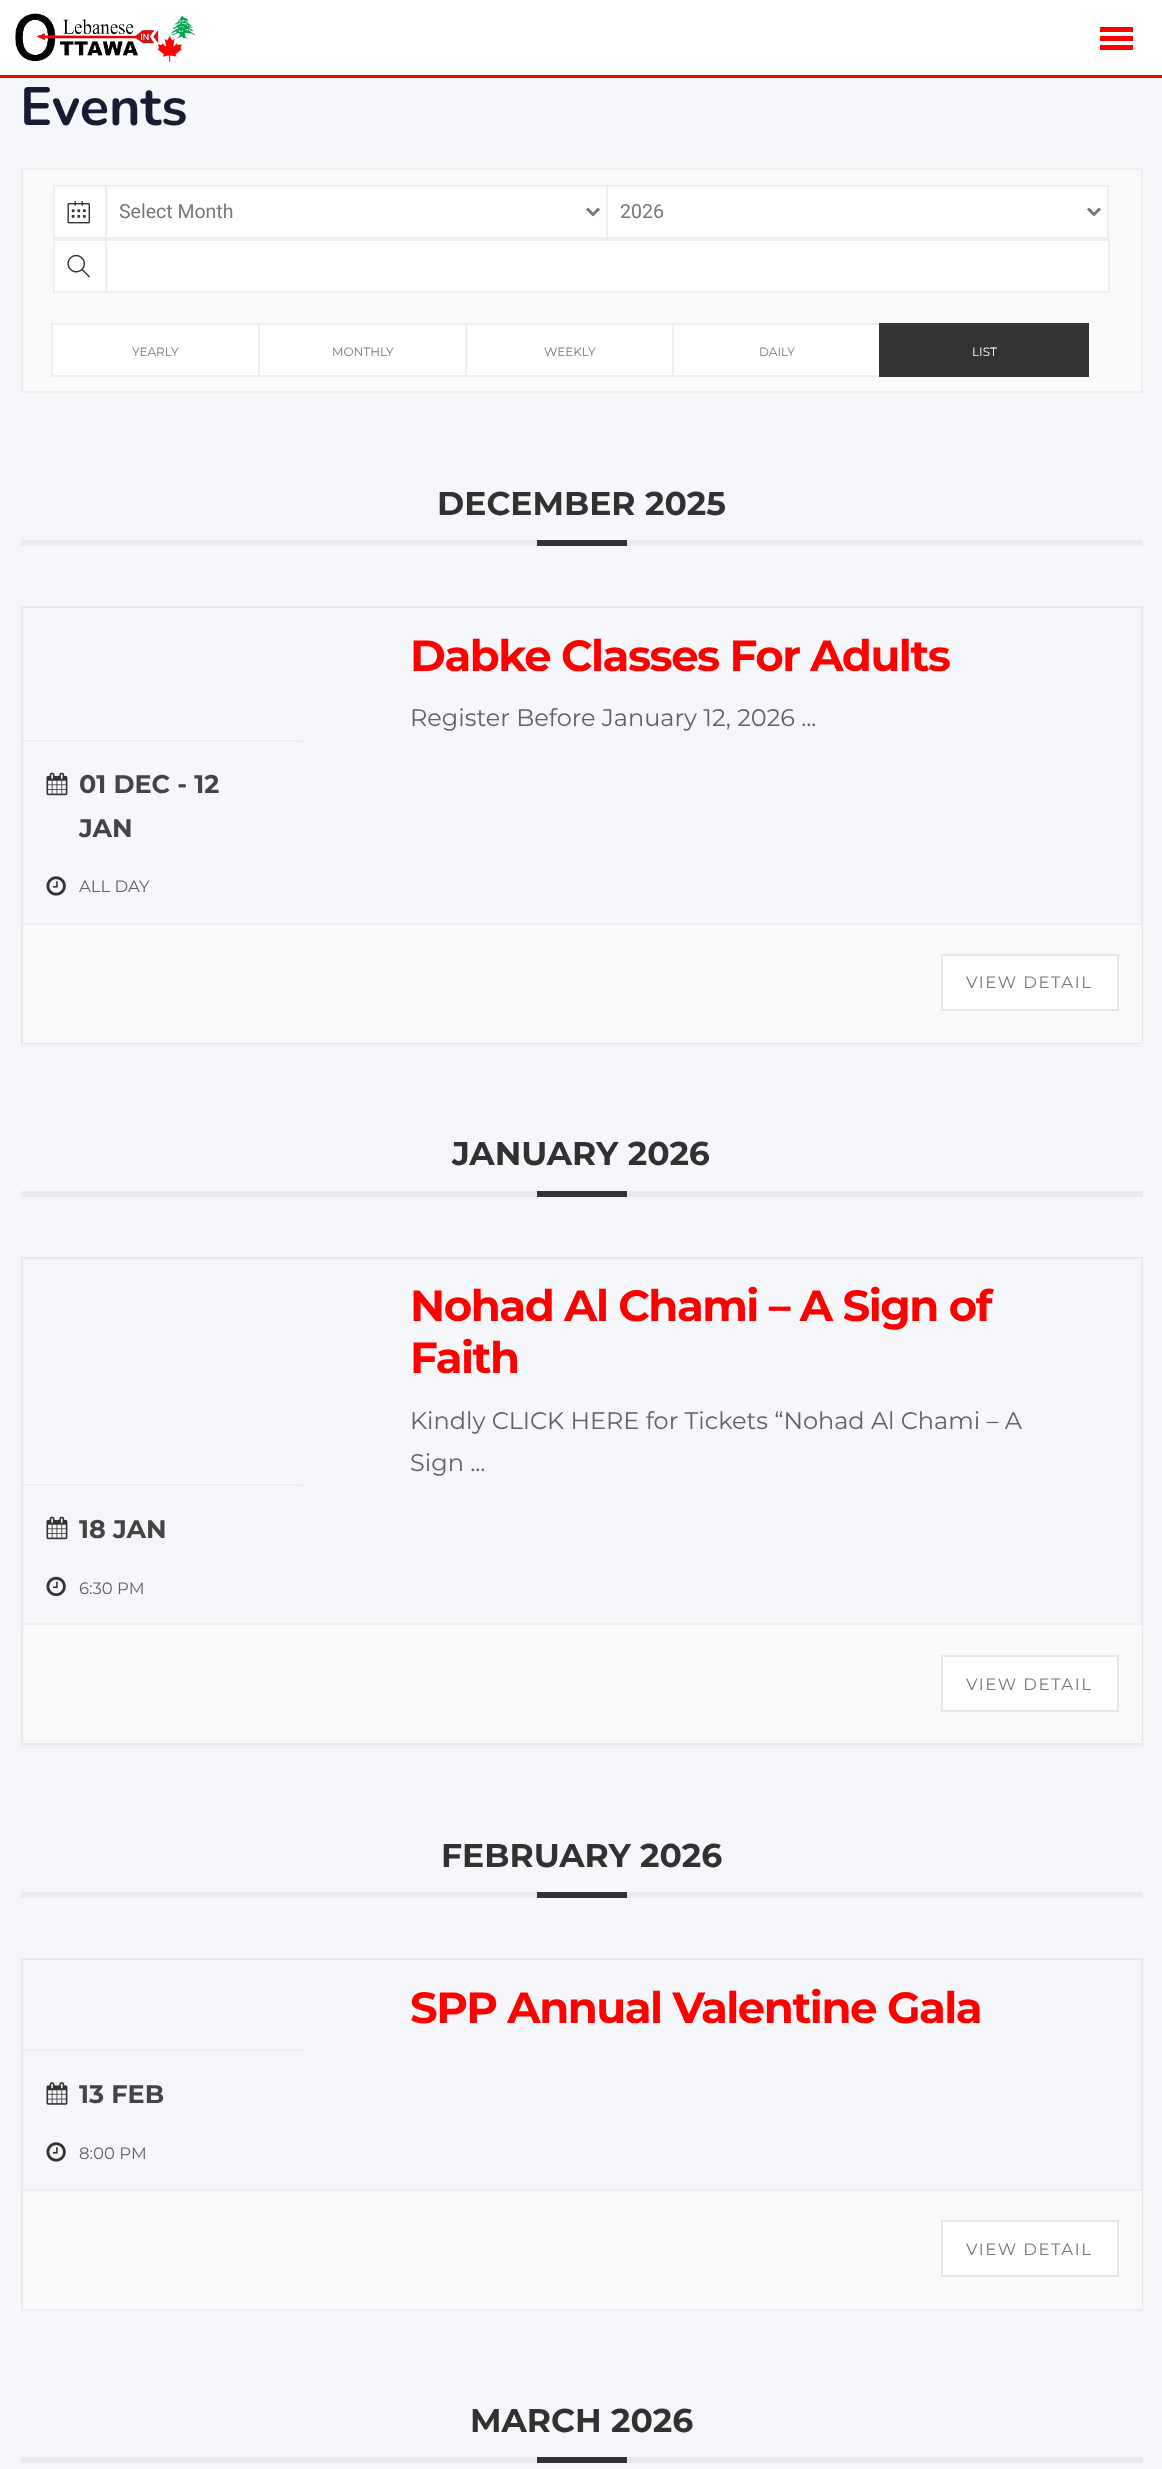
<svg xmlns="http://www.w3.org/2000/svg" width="1162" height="2469">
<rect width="100%" height="100%" fill="#fff"/>
<rect y="75" width="1162" height="3" fill="#f00"/>
<image x="15" y="13" width="180" height="49" href="media/1.png"/>
<rect x="1100" y="27" width="33" height="5" fill="#f00"/>
<rect x="1100" y="36" width="33" height="5" fill="#f00"/>
<rect x="1100" y="45" width="33" height="5" fill="#f00"/>
<rect y="78" width="1162" height="2391" fill="#f5f7fa"/>
<text x="20" y="125" style="font-family:Nunito;font-size:54px;font-weight:200;fill:#181b31">Events</text>
<rect x="22" y="169" width="1120" height="223" fill="#fafafa" stroke="#efefef" stroke-width="2"/>
<rect x="54" y="186" width="52" height="52" fill="#fff" stroke="#efefef" stroke-width="2"/>
<image x="67" y="201" width="23" height="23" href="media/2.png"/>
<rect x="106" y="186" width="501" height="52" fill="#fff" stroke="#efefef" stroke-width="2"/>
<path d="M587 208.5l6 6l6-6" fill="none" stroke="#777" stroke-width="3"/>
<text x="119" y="218" style="font-family:Roboto;font-size:19.5px;fill:#777">Select Month</text>
<rect x="607" y="186" width="501" height="52" fill="#fff" stroke="#efefef" stroke-width="2"/>
<path d="M1088 208.5l6 6l6-6" fill="none" stroke="#777" stroke-width="3"/>
<text x="620" y="218" style="font-family:Roboto;font-size:19.5px;fill:#777">2026</text>
<rect x="54" y="240" width="52" height="52" fill="#fff" stroke="#efefef" stroke-width="2"/>
<image x="67" y="254" width="23" height="24" href="media/3.png"/>
<rect x="106" y="240" width="1003" height="52" fill="#fff" stroke="#efefef" stroke-width="2"/>
<rect x="53" y="325" width="205" height="50" fill="#fff"/>
<rect x="52" y="324" width="208" height="52" fill="none" stroke="#efefef" stroke-width="2"/>
<text x="132" y="356" style="font-family:Montserrat;font-size:12px;fill:#777">YEARLY</text>
<rect x="260" y="325" width="205" height="50" fill="#fff"/>
<rect x="259" y="324" width="208" height="52" fill="none" stroke="#efefef" stroke-width="2"/>
<text x="332" y="356" style="font-family:Montserrat;font-size:12px;fill:#777">MONTHLY</text>
<rect x="467" y="325" width="205" height="50" fill="#fff"/>
<rect x="466" y="324" width="208" height="52" fill="none" stroke="#efefef" stroke-width="2"/>
<text x="544" y="356" style="font-family:Montserrat;font-size:12px;fill:#777">WEEKLY</text>
<rect x="674" y="325" width="205" height="50" fill="#fff"/>
<rect x="673" y="324" width="208" height="52" fill="none" stroke="#efefef" stroke-width="2"/>
<text x="759" y="356" style="font-family:Montserrat;font-size:12px;fill:#777">DAILY</text>
<rect x="879" y="323" width="210" height="54" fill="#333"/>
<text x="972" y="356" style="font-family:Montserrat;font-size:12px;fill:#fff">LIST</text>
<rect x="21" y="540" width="1122" height="6" fill="#ebebeb"/>
<text x="437" y="515" style="font-family:Montserrat;font-size:33px;font-weight:bold;fill:#313131">DECEMBER 2025</text>
<rect x="537" y="540" width="90" height="6" fill="#333"/>
<rect x="21" y="1044" width="1122" height="3" fill="#f1f3f6"/>
<rect x="22" y="607" width="1120" height="436" fill="none" stroke="#e9e9e9" stroke-width="2"/>
<text x="410" y="671" style="font-family:Montserrat;font-size:43.5px;font-weight:bold;letter-spacing:-1.5px;fill:#f00">Dabke Classes For Adults</text>
<text x="410" y="726" style="font-family:Montserrat;font-size:24px;fill:#626262">Register Before January 12, 2026 ...</text>
<rect x="23" y="740" width="279" height="2" fill="#eee"/>
<image x="46" y="772" width="22" height="24" href="media/4.png"/>
<text x="79" y="793" style="font-family:Montserrat;font-size:25.5px;font-weight:bold;fill:#444">01 DEC - 12</text>
<text x="79" y="837" style="font-family:Montserrat;font-size:25.5px;font-weight:bold;fill:#444">JAN</text>
<image x="46" y="876" width="20" height="20" href="media/5.png"/>
<text x="79" y="892" style="font-family:Montserrat;font-size:16.5px;fill:#626262">ALL DAY</text>
<rect x="23" y="925" width="1119" height="118" fill="#fafafa"/>
<rect x="23" y="923" width="1119" height="2" fill="#efefef"/>
<rect x="942" y="955" width="176" height="55" fill="#fff" stroke="#e8e8e8" stroke-width="2"/>
<text x="966" y="988" style="font-family:Montserrat;font-size:16.5px;letter-spacing:1.5px;fill:#777">VIEW DETAIL</text>
<rect x="21" y="1191" width="1122" height="6" fill="#ebebeb"/>
<text x="452" y="1165" style="font-family:Montserrat;font-size:33px;font-weight:bold;fill:#313131">JANUARY 2026</text>
<rect x="537" y="1191" width="90" height="6" fill="#333"/>
<rect x="21" y="1745" width="1122" height="3" fill="#f1f3f6"/>
<rect x="22" y="1258" width="1120" height="486" fill="none" stroke="#e9e9e9" stroke-width="2"/>
<text x="410" y="1321" style="font-family:Montserrat;font-size:43.5px;font-weight:bold;letter-spacing:-1.5px;fill:#f00">Nohad Al Chami – A Sign of</text>
<text x="410" y="1373" style="font-family:Montserrat;font-size:43.5px;font-weight:bold;letter-spacing:-1.5px;fill:#f00">Faith</text>
<text x="410" y="1429" style="font-family:Montserrat;font-size:24px;fill:#626262">Kindly CLICK HERE for Tickets “Nohad Al Chami – A</text>
<text x="410" y="1471" style="font-family:Montserrat;font-size:24px;fill:#626262">Sign ...</text>
<rect x="23" y="1484" width="279" height="2" fill="#eee"/>
<image x="46" y="1516" width="22" height="24" href="media/4.png"/>
<text x="79" y="1538" style="font-family:Montserrat;font-size:25.5px;font-weight:bold;fill:#444">18 JAN</text>
<image x="46" y="1576" width="20" height="21" href="media/6.png"/>
<text x="79" y="1594" style="font-family:Montserrat;font-size:16.5px;fill:#626262">6:30 PM</text>
<rect x="23" y="1625" width="1119" height="118" fill="#fafafa"/>
<rect x="23" y="1623" width="1119" height="2" fill="#efefef"/>
<rect x="942" y="1656" width="176" height="55" fill="#fff" stroke="#e8e8e8" stroke-width="2"/>
<text x="966" y="1690" style="font-family:Montserrat;font-size:16.5px;letter-spacing:1.5px;fill:#777">VIEW DETAIL</text>
<rect x="21" y="1892" width="1122" height="6" fill="#ebebeb"/>
<text x="441" y="1867" style="font-family:Montserrat;font-size:33px;font-weight:bold;fill:#313131">FEBRUARY 2026</text>
<rect x="537" y="1892" width="90" height="6" fill="#333"/>
<rect x="21" y="2310" width="1122" height="3" fill="#f1f3f6"/>
<rect x="22" y="1959" width="1120" height="350" fill="none" stroke="#e9e9e9" stroke-width="2"/>
<text x="410" y="2023" style="font-family:Montserrat;font-size:43.5px;font-weight:bold;letter-spacing:-1.5px;fill:#f00">SPP Annual Valentine Gala</text>
<rect x="23" y="2049" width="279" height="2" fill="#eee"/>
<image x="46" y="2082" width="22" height="23" href="media/7.png"/>
<text x="79" y="2103" style="font-family:Montserrat;font-size:25.5px;font-weight:bold;fill:#444">13 FEB</text>
<image x="46" y="2142" width="20" height="20" href="media/5.png"/>
<text x="79" y="2159" style="font-family:Montserrat;font-size:16.5px;fill:#626262">8:00 PM</text>
<rect x="23" y="2191" width="1119" height="118" fill="#fafafa"/>
<rect x="23" y="2189" width="1119" height="2" fill="#efefef"/>
<rect x="942" y="2221" width="176" height="55" fill="#fff" stroke="#e8e8e8" stroke-width="2"/>
<text x="966" y="2255" style="font-family:Montserrat;font-size:16.5px;letter-spacing:1.5px;fill:#777">VIEW DETAIL</text>
<rect x="21" y="2457" width="1122" height="6" fill="#ebebeb"/>
<text x="470" y="2432" style="font-family:Montserrat;font-size:33px;font-weight:bold;fill:#313131">MARCH 2026</text>
<rect x="537" y="2457" width="90" height="6" fill="#333"/>
</svg>
